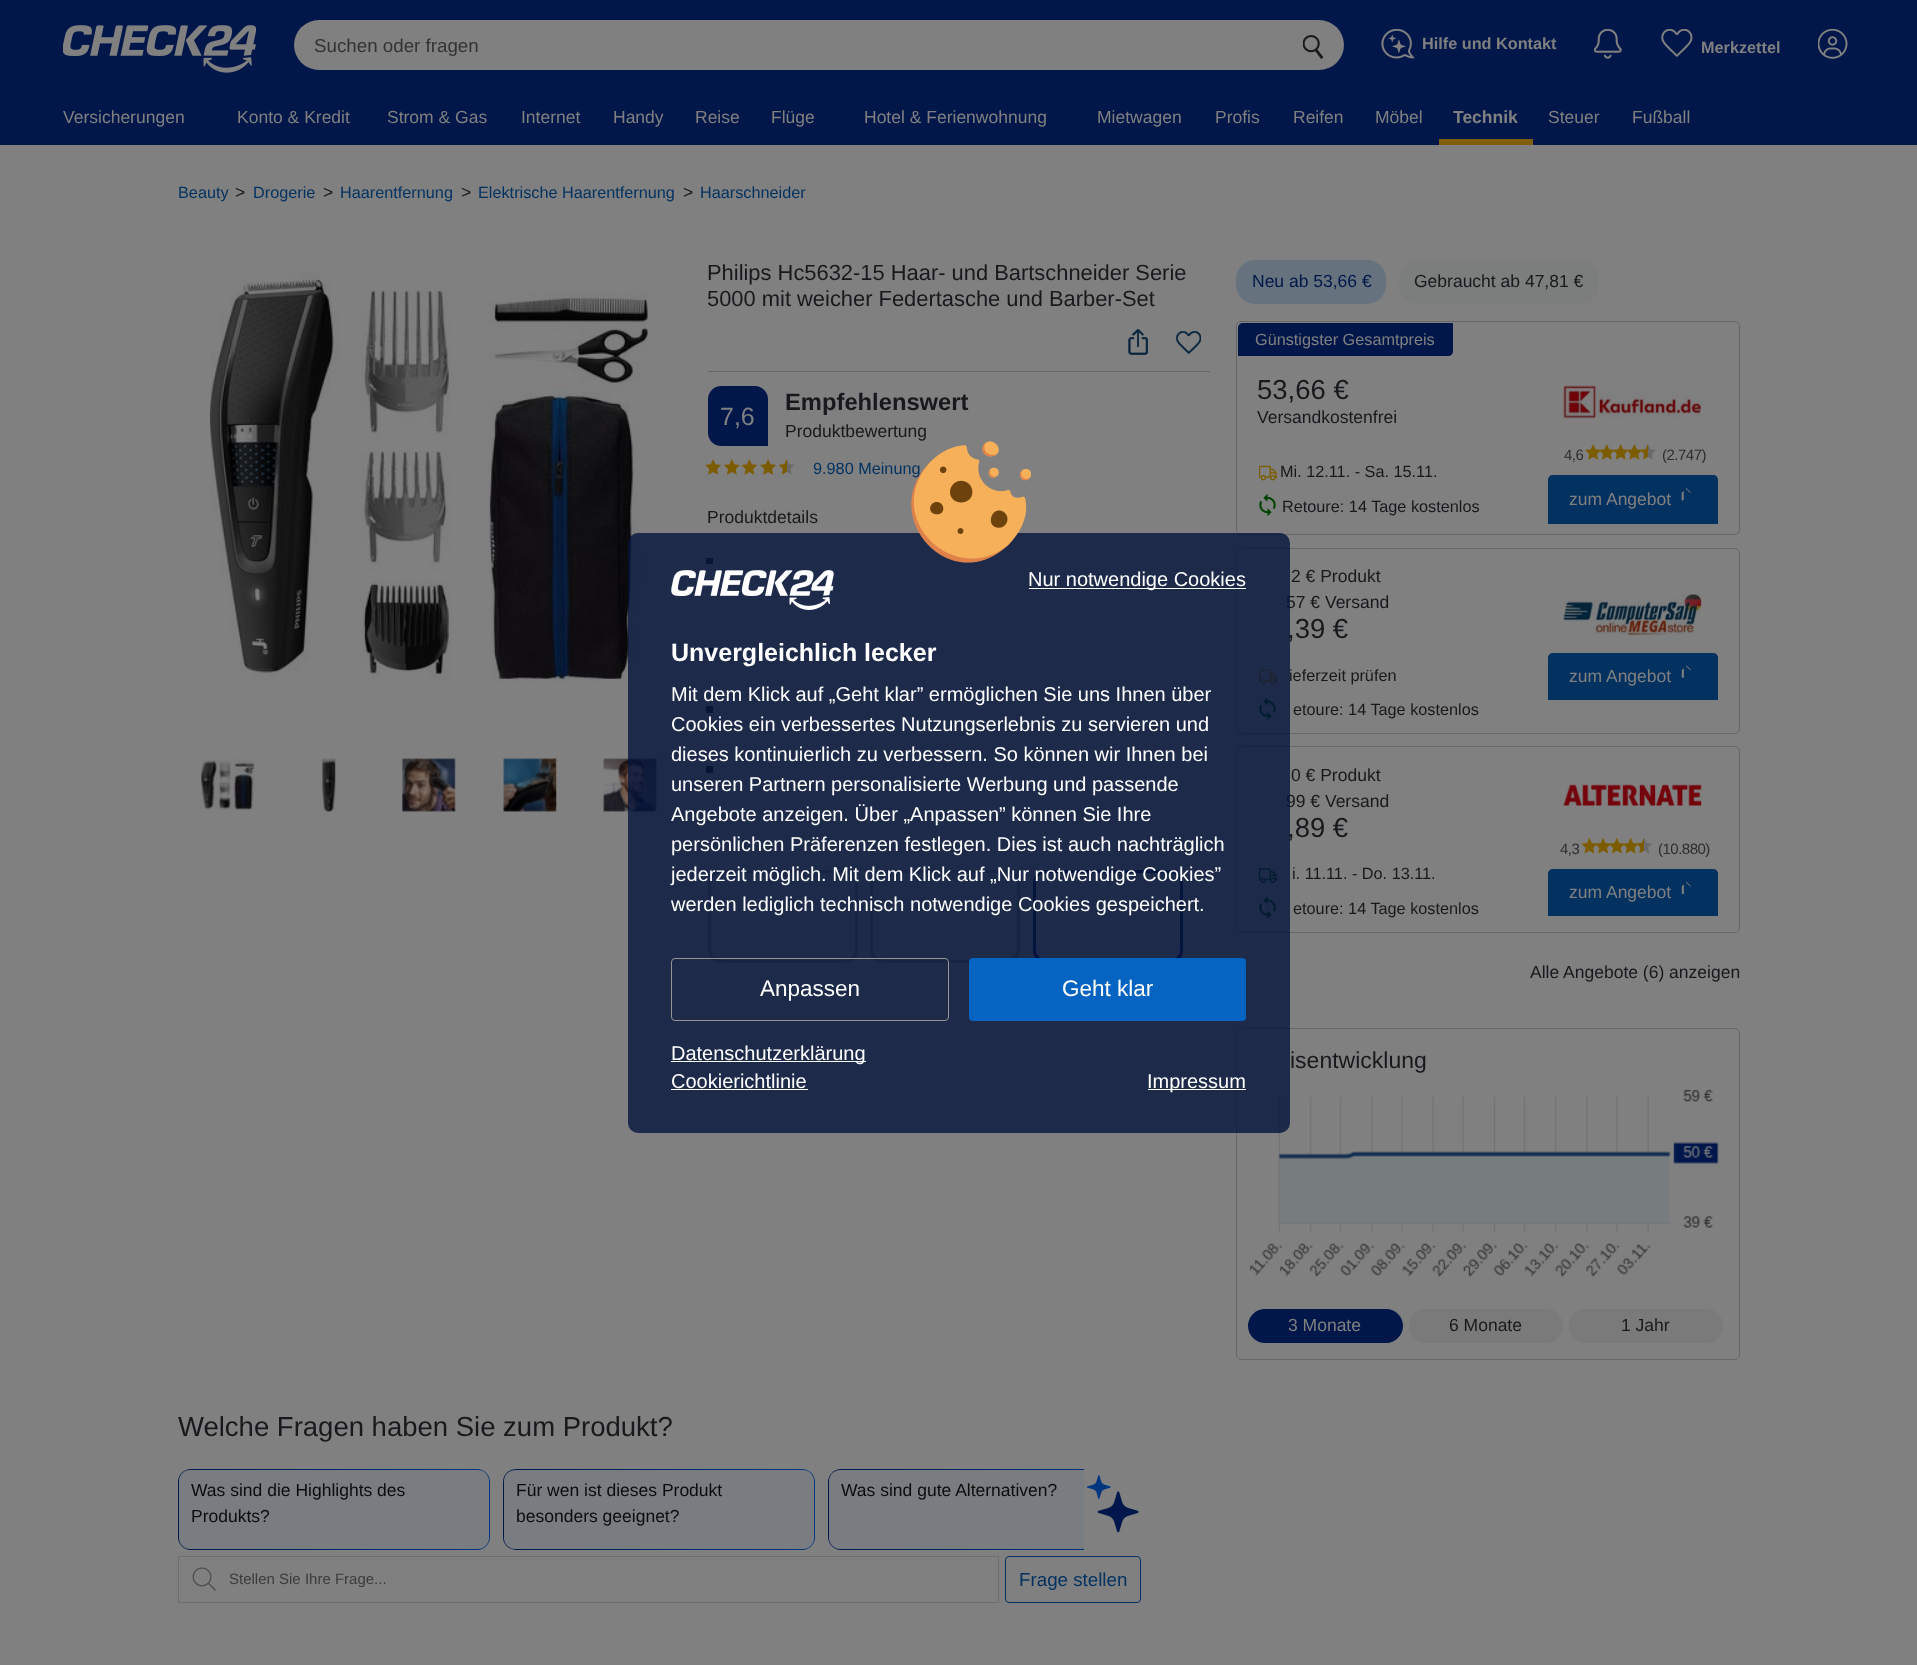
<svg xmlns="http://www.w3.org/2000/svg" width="1917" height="1665">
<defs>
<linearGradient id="g1" gradientUnits="userSpaceOnUse" x1="178" y1="1509" x2="490" y2="1509"><stop offset="0" stop-color="#01174a"/><stop offset="1" stop-color="#003680"/></linearGradient>
<linearGradient id="g2" gradientUnits="userSpaceOnUse" x1="503" y1="1509" x2="815" y2="1509"><stop offset="0" stop-color="#01174a"/><stop offset="1" stop-color="#003680"/></linearGradient>
<linearGradient id="g3" gradientUnits="userSpaceOnUse" x1="828" y1="1509" x2="1140" y2="1509"><stop offset="0" stop-color="#01174a"/><stop offset="1" stop-color="#003680"/></linearGradient>
</defs>
<rect width="100%" height="100%" fill="#808080"/>
<rect width="1917" height="145" fill="#01174a"/>
<image x="63" y="25" width="193" height="48" href="media/1.png"/>
<rect x="294" y="20" width="1050" height="50" rx="25" fill="#808080"/>
<text x="314" y="52" style="font-family:Liberation Sans;font-size:18.75px;fill:#333">Suchen oder fragen</text>
<image x="1303" y="35" width="21" height="24" href="media/2.png"/>
<image x="1381" y="29" width="34" height="30" href="media/3.png"/>
<text x="1422" y="49" style="font-family:Liberation Sans;font-size:16.25px;font-weight:bold;fill:#808080">Hilfe und Kontakt</text>
<image x="1594" y="29" width="28" height="30" href="media/4.png"/>
<image x="1661" y="29" width="32" height="29" href="media/5.png"/>
<text x="1701" y="53" style="font-family:Liberation Sans;font-size:16.25px;font-weight:bold;fill:#808080">Merkzettel</text>
<image x="1818" y="29" width="30" height="30" href="media/6.png"/>
<text x="63" y="123" style="font-family:Liberation Sans;font-size:17.5px;fill:#808080">Versicherungen</text>
<text x="237" y="123" style="font-family:Liberation Sans;font-size:17.5px;fill:#808080">Konto &amp; Kredit</text>
<text x="387" y="123" style="font-family:Liberation Sans;font-size:17.5px;fill:#808080">Strom &amp; Gas</text>
<text x="521" y="123" style="font-family:Liberation Sans;font-size:17.5px;fill:#808080">Internet</text>
<text x="613" y="123" style="font-family:Liberation Sans;font-size:17.5px;fill:#808080">Handy</text>
<text x="695" y="123" style="font-family:Liberation Sans;font-size:17.5px;fill:#808080">Reise</text>
<text x="771" y="123" style="font-family:Liberation Sans;font-size:17.5px;fill:#808080">Flüge</text>
<text x="864" y="123" style="font-family:Liberation Sans;font-size:17.5px;fill:#808080">Hotel &amp; Ferienwohnung</text>
<text x="1097" y="123" style="font-family:Liberation Sans;font-size:17.5px;fill:#808080">Mietwagen</text>
<text x="1215" y="123" style="font-family:Liberation Sans;font-size:17.5px;fill:#808080">Profis</text>
<text x="1293" y="123" style="font-family:Liberation Sans;font-size:17.5px;fill:#808080">Reifen</text>
<text x="1375" y="123" style="font-family:Liberation Sans;font-size:17.5px;fill:#808080">Möbel</text>
<text x="1453" y="123" style="font-family:Liberation Sans;font-size:17.5px;font-weight:bold;fill:#808080">Technik</text>
<rect x="1439" y="139" width="94" height="6" fill="#805e0e"/>
<text x="1548" y="123" style="font-family:Liberation Sans;font-size:17.5px;fill:#808080">Steuer</text>
<text x="1632" y="123" style="font-family:Liberation Sans;font-size:17.5px;fill:#808080">Fußball</text>
<text x="178" y="198" style="font-family:Liberation Sans;font-size:16.25px;fill:#033261">Beauty</text>
<text x="235" y="198" style="font-family:Liberation Sans;font-size:17.5px;fill:#17191c">&gt;</text>
<text x="253" y="198" style="font-family:Liberation Sans;font-size:16.25px;fill:#033261">Drogerie</text>
<text x="323" y="198" style="font-family:Liberation Sans;font-size:17.5px;fill:#17191c">&gt;</text>
<text x="340" y="198" style="font-family:Liberation Sans;font-size:16.25px;fill:#033261">Haarentfernung</text>
<text x="461" y="198" style="font-family:Liberation Sans;font-size:17.5px;fill:#17191c">&gt;</text>
<text x="478" y="198" style="font-family:Liberation Sans;font-size:16.25px;fill:#033261">Elektrische Haarentfernung</text>
<text x="683" y="198" style="font-family:Liberation Sans;font-size:17.5px;fill:#17191c">&gt;</text>
<text x="700" y="198" style="font-family:Liberation Sans;font-size:16.25px;fill:#033261">Haarschneider</text>
<image x="210" y="271" width="438" height="411" href="media/7.png"/>
<image x="201" y="758" width="54" height="52" href="media/8.png"/>
<image x="322" y="758" width="14" height="54" href="media/9.png"/>
<image x="402" y="758" width="54" height="54" href="media/10.png"/>
<image x="503" y="758" width="54" height="54" href="media/11.png"/>
<image x="603" y="758" width="54" height="54" href="media/12.png"/>
<text x="707" y="280" style="font-family:Liberation Sans;font-size:21.9px;fill:#17191c">Philips Hc5632-15 Haar- und Bartschneider Serie</text>
<text x="707" y="306" style="font-family:Liberation Sans;font-size:21.9px;fill:#17191c">5000 mit weicher Federtasche und Barber-Set</text>
<rect x="708" y="371" width="502" height="1" fill="#686666"/>
<image x="1128" y="329" width="20" height="26" href="media/13.png"/>
<image x="1176" y="331" width="25" height="23" href="media/14.png"/>
<path d="M721 386h34c7 0 13 6 13 13v47h-47c-7 0-13-6-13-13v-34c0-7 6-13 13-13z" fill="#01174a"/>
<text x="720" y="425" style="font-family:Liberation Sans;font-size:25px;fill:#808080">7,6</text>
<text x="785" y="410" style="font-family:Liberation Sans;font-size:23.75px;font-weight:bold;fill:#17191c">Empfehlenswert</text>
<text x="785" y="437" style="font-family:Liberation Sans;font-size:17.5px;fill:#17191c">Produktbewertung</text>
<image x="705" y="459" width="16" height="16" href="media/15.png"/>
<image x="724" y="459" width="16" height="16" href="media/16.png"/>
<image x="741" y="459" width="17" height="16" href="media/17.png"/>
<image x="760" y="459" width="16" height="16" href="media/15.png"/>
<image x="779" y="459" width="16" height="16" href="media/18.png"/>
<text x="813" y="474" style="font-family:Liberation Sans;font-size:16.25px;fill:#033261">9.980 Meinung</text>
<text x="707" y="523" style="font-family:Liberation Sans;font-size:17.5px;fill:#17191c">Produktdetails</text>
<rect x="706" y="558" width="7" height="6" fill="#17191c"/>
<rect x="706" y="648" width="7" height="6" fill="#17191c"/>
<rect x="706" y="706" width="7" height="7" fill="#17191c"/>
<rect x="706" y="766" width="7" height="7" fill="#17191c"/>
<rect x="709.5" y="871.5" width="147" height="90" rx="11.5" fill="none" stroke="#676767" stroke-width="3"/>
<rect x="871.5" y="871.5" width="147" height="90" rx="11.5" fill="none" stroke="#676767" stroke-width="3"/>
<rect x="1034.5" y="871.5" width="147" height="90" rx="11.5" fill="none" stroke="#01174a" stroke-width="3"/>
<rect x="1236" y="260" width="150" height="44" rx="19" fill="#66737e"/>
<text x="1252" y="287" style="font-family:Liberation Sans;font-size:17.5px;fill:#01174a">Neu ab 53,66 €</text>
<rect x="1399" y="260" width="200" height="44" rx="19" fill="#7c7d7d"/>
<text x="1414" y="287" style="font-family:Liberation Sans;font-size:17.5px;fill:#17191c">Gebraucht ab 47,81 €</text>
<rect x="1236.5" y="321.5" width="503" height="213" rx="4.5" fill="none" stroke="#676767"/>
<path d="M1243 323h210v28c0 3-2 5-5 5h-210v-28c0-3 2-5 5-5z" fill="#01174a"/>
<text x="1255" y="345" style="font-family:Liberation Sans;font-size:16.25px;fill:#808080">Günstigster Gesamtpreis</text>
<text x="1257" y="399" style="font-family:Liberation Sans;font-size:27.5px;fill:#17191c">53,66 €</text>
<text x="1257" y="423" style="font-family:Liberation Sans;font-size:17.5px;fill:#17191c">Versandkostenfrei</text>
<image x="1259" y="465" width="19" height="16" href="media/19.png"/>
<text x="1280" y="477" style="font-family:Liberation Sans;font-size:16.25px;fill:#17191c">Mi. 12.11. - Sa. 15.11.</text>
<image x="1259" y="494" width="17" height="22" href="media/20.png"/>
<text x="1282" y="512" style="font-family:Liberation Sans;font-size:16.25px;fill:#17191c">Retoure: 14 Tage kostenlos</text>
<image x="1563" y="385" width="139" height="34" href="media/21.png"/>
<text x="1564" y="460" style="font-family:Liberation Sans;font-size:15px;letter-spacing:-0.5px;fill:#2d2d2d">4,6</text>
<image x="1585" y="444" width="16" height="16" href="media/15.png"/>
<image x="1599" y="444" width="16" height="16" href="media/22.png"/>
<image x="1613" y="444" width="16" height="16" href="media/23.png"/>
<image x="1626" y="444" width="16" height="16" href="media/24.png"/>
<image x="1640" y="444" width="16" height="16" href="media/25.png"/>
<text x="1662" y="460" style="font-family:Liberation Sans;font-size:15px;letter-spacing:-0.5px;fill:#2d2d2d">(2.747)</text>
<path d="M1553 475h160c3 0 5 2 5 5v44h-170v-44c0-3 2-5 5-5z" fill="#033261"/>
<text x="1569" y="505" style="font-family:Liberation Sans;font-size:17.5px;fill:#808080">zum Angebot</text>
<image x="1681" y="488" width="10" height="13" href="media/26.png"/>
<rect x="1236.5" y="548.5" width="503" height="185" rx="4.5" fill="none" stroke="#676767"/>
<text x="1291" y="582" style="font-family:Liberation Sans;font-size:17.5px;fill:#17191c">2 € Produkt</text>
<text x="1286" y="608" style="font-family:Liberation Sans;font-size:17.5px;fill:#17191c">57 € Versand</text>
<text x="1287" y="638" style="font-family:Liberation Sans;font-size:27.5px;fill:#17191c">,39 €</text>
<image x="1259" y="669" width="19" height="16" href="media/27.png"/>
<text x="1289" y="681" style="font-family:Liberation Sans;font-size:16.25px;fill:#17191c">ieferzeit prüfen</text>
<image x="1259" y="698" width="17" height="22" href="media/28.png"/>
<text x="1293" y="715" style="font-family:Liberation Sans;font-size:16.25px;fill:#17191c">etoure: 14 Tage kostenlos</text>
<image x="1563" y="594" width="139" height="42" href="media/29.png"/>
<path d="M1553 653h160c3 0 5 2 5 5v42h-170v-42c0-3 2-5 5-5z" fill="#033261"/>
<text x="1569" y="682" style="font-family:Liberation Sans;font-size:17.5px;fill:#808080">zum Angebot</text>
<image x="1681" y="665" width="10" height="13" href="media/30.png"/>
<rect x="1236.5" y="746.5" width="503" height="186" rx="4.5" fill="none" stroke="#676767"/>
<text x="1291" y="781" style="font-family:Liberation Sans;font-size:17.5px;fill:#17191c">0 € Produkt</text>
<text x="1286" y="807" style="font-family:Liberation Sans;font-size:17.5px;fill:#17191c">99 € Versand</text>
<text x="1287" y="837" style="font-family:Liberation Sans;font-size:27.5px;fill:#17191c">,89 €</text>
<image x="1259" y="868" width="19" height="15" href="media/31.png"/>
<text x="1292" y="879" style="font-family:Liberation Sans;font-size:16.25px;fill:#17191c">i. 11.11. - Do. 13.11.</text>
<image x="1259" y="896" width="17" height="23" href="media/32.png"/>
<text x="1293" y="914" style="font-family:Liberation Sans;font-size:16.25px;fill:#17191c">etoure: 14 Tage kostenlos</text>
<image x="1563" y="784" width="139" height="22" href="media/33.png"/>
<text x="1560" y="854" style="font-family:Liberation Sans;font-size:15px;letter-spacing:-0.5px;fill:#2d2d2d">4,3</text>
<image x="1581" y="838" width="17" height="16" href="media/34.png"/>
<image x="1595" y="838" width="16" height="16" href="media/35.png"/>
<image x="1609" y="838" width="16" height="16" href="media/36.png"/>
<image x="1623" y="838" width="16" height="16" href="media/37.png"/>
<image x="1636" y="838" width="16" height="16" href="media/38.png"/>
<text x="1658" y="854" style="font-family:Liberation Sans;font-size:15px;letter-spacing:-0.5px;fill:#2d2d2d">(10.880)</text>
<path d="M1553 869h160c3 0 5 2 5 5v42h-170v-42c0-3 2-5 5-5z" fill="#033261"/>
<text x="1569" y="898" style="font-family:Liberation Sans;font-size:17.5px;fill:#808080">zum Angebot</text>
<image x="1681" y="881" width="10" height="13" href="media/39.png"/>
<text x="1530" y="978" style="font-family:Liberation Sans;font-size:17.5px;fill:#17191c">Alle Angebote (6) anzeigen</text>
<rect x="1236.5" y="1028.5" width="503" height="331" rx="4.5" fill="none" stroke="#676767"/>
<text x="1290" y="1068" style="font-family:Liberation Sans;font-size:23px;fill:#17191c">isentwicklung</text>
<image x="1249" y="1089" width="470" height="188" href="media/40.png"/>
<rect x="1248" y="1309" width="155" height="34" rx="17" fill="#01174a"/>
<text x="1288" y="1331" style="font-family:Liberation Sans;font-size:17.5px;fill:#808080">3 Monate</text>
<rect x="1409" y="1309" width="154" height="34" rx="17" fill="#7a7a7a"/>
<text x="1449" y="1331" style="font-family:Liberation Sans;font-size:17.5px;fill:#17191c">6 Monate</text>
<rect x="1569" y="1309" width="154" height="34" rx="17" fill="#7a7a7a"/>
<text x="1621" y="1331" style="font-family:Liberation Sans;font-size:17.5px;fill:#17191c">1 Jahr</text>
<text x="178" y="1436" style="font-family:Liberation Sans;font-size:27.5px;fill:#17191c">Welche Fragen haben Sie zum Produkt?</text>
<rect x="178" y="1469" width="312" height="81" rx="13" fill="url(#g1)"/>
<rect x="179" y="1470" width="310" height="79" rx="11" fill="#797c80"/>
<text x="191" y="1496" style="font-family:Liberation Sans;font-size:17.5px;fill:#0c0c0c">Was sind die Highlights des</text>
<text x="191" y="1522" style="font-family:Liberation Sans;font-size:17.5px;fill:#0c0c0c">Produkts?</text>
<rect x="503" y="1469" width="312" height="81" rx="13" fill="url(#g2)"/>
<rect x="504" y="1470" width="310" height="79" rx="11" fill="#797c80"/>
<text x="516" y="1496" style="font-family:Liberation Sans;font-size:17.5px;fill:#0c0c0c">Für wen ist dieses Produkt</text>
<text x="516" y="1522" style="font-family:Liberation Sans;font-size:17.5px;fill:#0c0c0c">besonders geeignet?</text>
<path d="M841 1469h243v81h-243c-7 0-13-6-13-13v-55c0-7 6-13 13-13z" fill="url(#g3)"/>
<path d="M840 1470h244v79h-244c-6 0-11-5-11-11v-57c0-6 5-11 11-11z" fill="#797c80"/>
<text x="841" y="1496" style="font-family:Liberation Sans;font-size:17.5px;fill:#0c0c0c">Was sind gute Alternativen?</text>
<image x="1087" y="1475" width="52" height="58" href="media/41.png"/>
<rect x="178.5" y="1556.5" width="820" height="46" fill="none" stroke="#6e6e6e"/>
<image x="192" y="1567" width="24" height="24" href="media/42.png"/>
<text x="229" y="1584" style="font-family:Liberation Sans;font-size:15px;fill:#3b3b3b">Stellen Sie Ihre Frage...</text>
<rect x="1005.5" y="1556.5" width="135" height="46" rx="3.5" fill="none" stroke="#033261"/>
<text x="1019" y="1586" style="font-family:Liberation Sans;font-size:18.75px;fill:#033261">Frage stellen</text>
<rect x="628" y="533" width="662" height="600" rx="10" fill="#04143ccc"/>
<image x="911" y="441" width="120" height="122" href="media/43.png"/>
<image x="671" y="570" width="163" height="40" href="media/44.png"/>
<rect x="1029" y="588" width="217" height="1" fill="#fff"/>
<text x="1028" y="586" style="font-family:Liberation Sans;font-size:20px;fill:#fff">Nur notwendige Cookies</text>
<text x="671" y="661" style="font-family:Liberation Sans;font-size:25px;font-weight:bold;fill:#fff">Unvergleichlich lecker</text>
<text x="671" y="701" style="font-family:Liberation Sans;font-size:20px;fill:#fff">Mit dem Klick auf „Geht klar” ermöglichen Sie uns Ihnen über</text>
<text x="671" y="731" style="font-family:Liberation Sans;font-size:20px;fill:#fff">Cookies ein verbessertes Nutzungserlebnis zu servieren und</text>
<text x="671" y="761" style="font-family:Liberation Sans;font-size:20px;fill:#fff">dieses kontinuierlich zu verbessern. So können wir Ihnen bei</text>
<text x="671" y="791" style="font-family:Liberation Sans;font-size:20px;fill:#fff">unseren Partnern personalisierte Werbung und passende</text>
<text x="671" y="821" style="font-family:Liberation Sans;font-size:20px;fill:#fff">Angebote anzeigen. Über „Anpassen” können Sie Ihre</text>
<text x="671" y="851" style="font-family:Liberation Sans;font-size:20px;fill:#fff">persönlichen Präferenzen festlegen. Dies ist auch nachträglich</text>
<text x="671" y="881" style="font-family:Liberation Sans;font-size:20px;fill:#fff">jederzeit möglich. Mit dem Klick auf „Nur notwendige Cookies”</text>
<text x="671" y="911" style="font-family:Liberation Sans;font-size:20px;fill:#fff">werden lediglich technisch notwendige Cookies gespeichert.</text>
<rect x="671.5" y="958.5" width="277" height="62" rx="3.5" fill="none" stroke="#949494"/>
<text x="760" y="996" style="font-family:Liberation Sans;font-size:22.5px;fill:#fff">Anpassen</text>
<rect x="969" y="958" width="277" height="63" rx="4" fill="#0563c1"/>
<text x="1062" y="996" style="font-family:Liberation Sans;font-size:22.5px;fill:#fff">Geht klar</text>
<rect x="671" y="1061" width="195" height="1" fill="#fff"/>
<text x="671" y="1060" style="font-family:Liberation Sans;font-size:20px;fill:#fff">Datenschutzerklärung</text>
<text x="671" y="1088" style="font-family:Liberation Sans;font-size:20px;fill:#fff">Cookierichtlinie</text>
<rect x="671" y="1089" width="137" height="1" fill="#fff"/>
<rect x="1148" y="1089" width="98" height="1" fill="#fff"/>
<text x="1147" y="1088" style="font-family:Liberation Sans;font-size:20px;fill:#fff">Impressum</text>
</svg>
